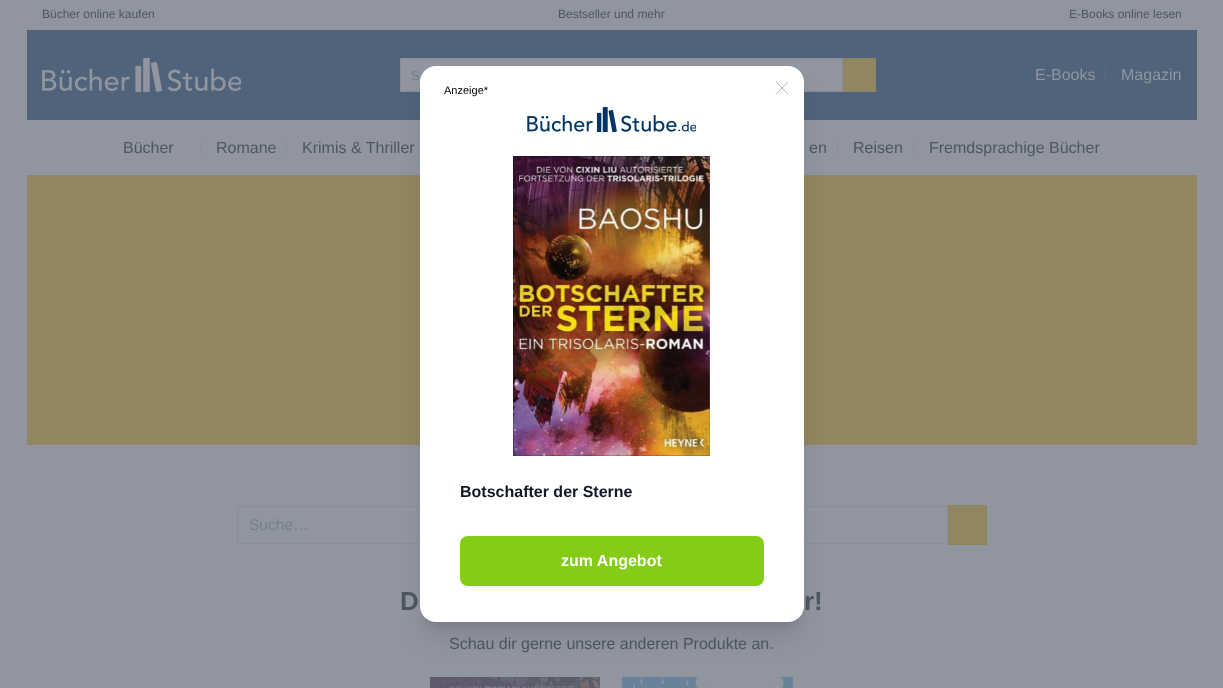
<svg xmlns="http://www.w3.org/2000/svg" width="1223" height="688">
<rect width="100%" height="100%" fill="#9095a0"/>
<text x="42" y="18" style="font-family:Liberation Sans;font-size:12px;fill:#505660">Bücher online kaufen</text>
<text x="558" y="18" style="font-family:Liberation Sans;font-size:12px;fill:#505660">Bestseller und mehr</text>
<text x="1069" y="18" style="font-family:Liberation Sans;font-size:12px;fill:#505660">E-Books online lesen</text>
<rect x="27" y="30" width="1170" height="90" fill="#50637a"/>
<image x="42" y="58" width="199" height="34" href="media/1.png"/>
<rect x="400.5" y="58.5" width="442" height="33" fill="#9095a0" stroke="#888d97"/>
<text x="411" y="80" style="font-family:Liberation Sans;font-size:13px;fill:#777e8c">S</text>
<rect x="843.5" y="58.5" width="32" height="33" fill="#908660" stroke="#8d8460"/>
<text x="1035" y="80" style="font-family:Liberation Sans;font-size:16px;fill:#9095a0">E-Books</text>
<rect x="1105" y="68" width="1" height="15" fill="#5d6d81"/>
<text x="1121" y="80" style="font-family:Liberation Sans;font-size:16px;fill:#9095a0">Magazin</text>
<text x="123" y="153" style="font-family:Liberation Sans;font-size:16px;fill:#505660">Bücher</text>
<rect x="200" y="141" width="1" height="15" fill="#8a8f9a"/>
<text x="216" y="153" style="font-family:Liberation Sans;font-size:16px;fill:#505660">Romane</text>
<rect x="286" y="141" width="1" height="15" fill="#8a8f9a"/>
<text x="302" y="153" style="font-family:Liberation Sans;font-size:16px;fill:#505660">Krimis &amp; Thriller</text>
<text x="809" y="153" style="font-family:Liberation Sans;font-size:16px;fill:#505660">en</text>
<rect x="837" y="141" width="1" height="15" fill="#8a8f9a"/>
<text x="853" y="153" style="font-family:Liberation Sans;font-size:16px;fill:#505660">Reisen</text>
<rect x="913" y="141" width="1" height="15" fill="#8a8f9a"/>
<text x="929" y="153" style="font-family:Liberation Sans;font-size:16px;fill:#505660">Fremdsprachige Bücher</text>
<rect x="27" y="175" width="1170" height="270" fill="#908660"/>
<rect x="237.5" y="506.5" width="710" height="37" fill="none" stroke="#888d97"/>
<text x="249" y="530" style="font-family:Liberation Sans;font-size:15.5px;fill:#777e8c">Suche…</text>
<rect x="948.5" y="505.5" width="38" height="39" fill="#908660" stroke="#8d8460"/>
<text x="400" y="610" style="font-family:Liberation Sans;font-size:26px;font-weight:bold;fill:#505660">D</text>
<text x="804" y="610" style="font-family:Liberation Sans;font-size:26px;font-weight:bold;fill:#505660">r!</text>
<text x="449" y="649" style="font-family:Liberation Sans;font-size:16px;fill:#505660">Schau dir gerne unsere anderen Produkte an.</text>
<image x="430" y="677" width="170" height="11" href="media/2.png"/>
<image x="622" y="677" width="171" height="11" href="media/3.png"/>
<rect x="426" y="80" width="372" height="544" rx="10" fill="#0000001a" filter="blur(5px)"/>
<rect x="425" y="91" width="374" height="546" rx="11" fill="#0000001a" filter="blur(12.5px)"/>
<rect x="420" y="66" width="384" height="556" rx="16" fill="#fff"/>
<text x="444" y="94" style="font-family:Liberation Sans;font-size:11px;fill:#000">Anzeige*</text>
<path d="M776.5 93.5l11-11m-11 0l11 11" fill="none" stroke="#9ca3af" stroke-width="0.8" stroke-linecap="round" stroke-linejoin="round"/>
<image x="527" y="107" width="169" height="25" href="media/4.png"/>
<image x="513" y="156" width="197" height="300" href="media/5.png"/>
<text x="460" y="497" style="font-family:Liberation Sans;font-size:16px;font-weight:bold;fill:#111827">Botschafter der Sterne</text>
<rect x="460" y="537" width="304" height="50" rx="8" fill="#0000000d" filter="blur(1px)"/>
<rect x="460" y="536" width="304" height="50" rx="8" fill="#84cc16"/>
<text x="561" y="566" style="font-family:Liberation Sans;font-size:16px;font-weight:bold;fill:#fff">zum Angebot</text>
</svg>
